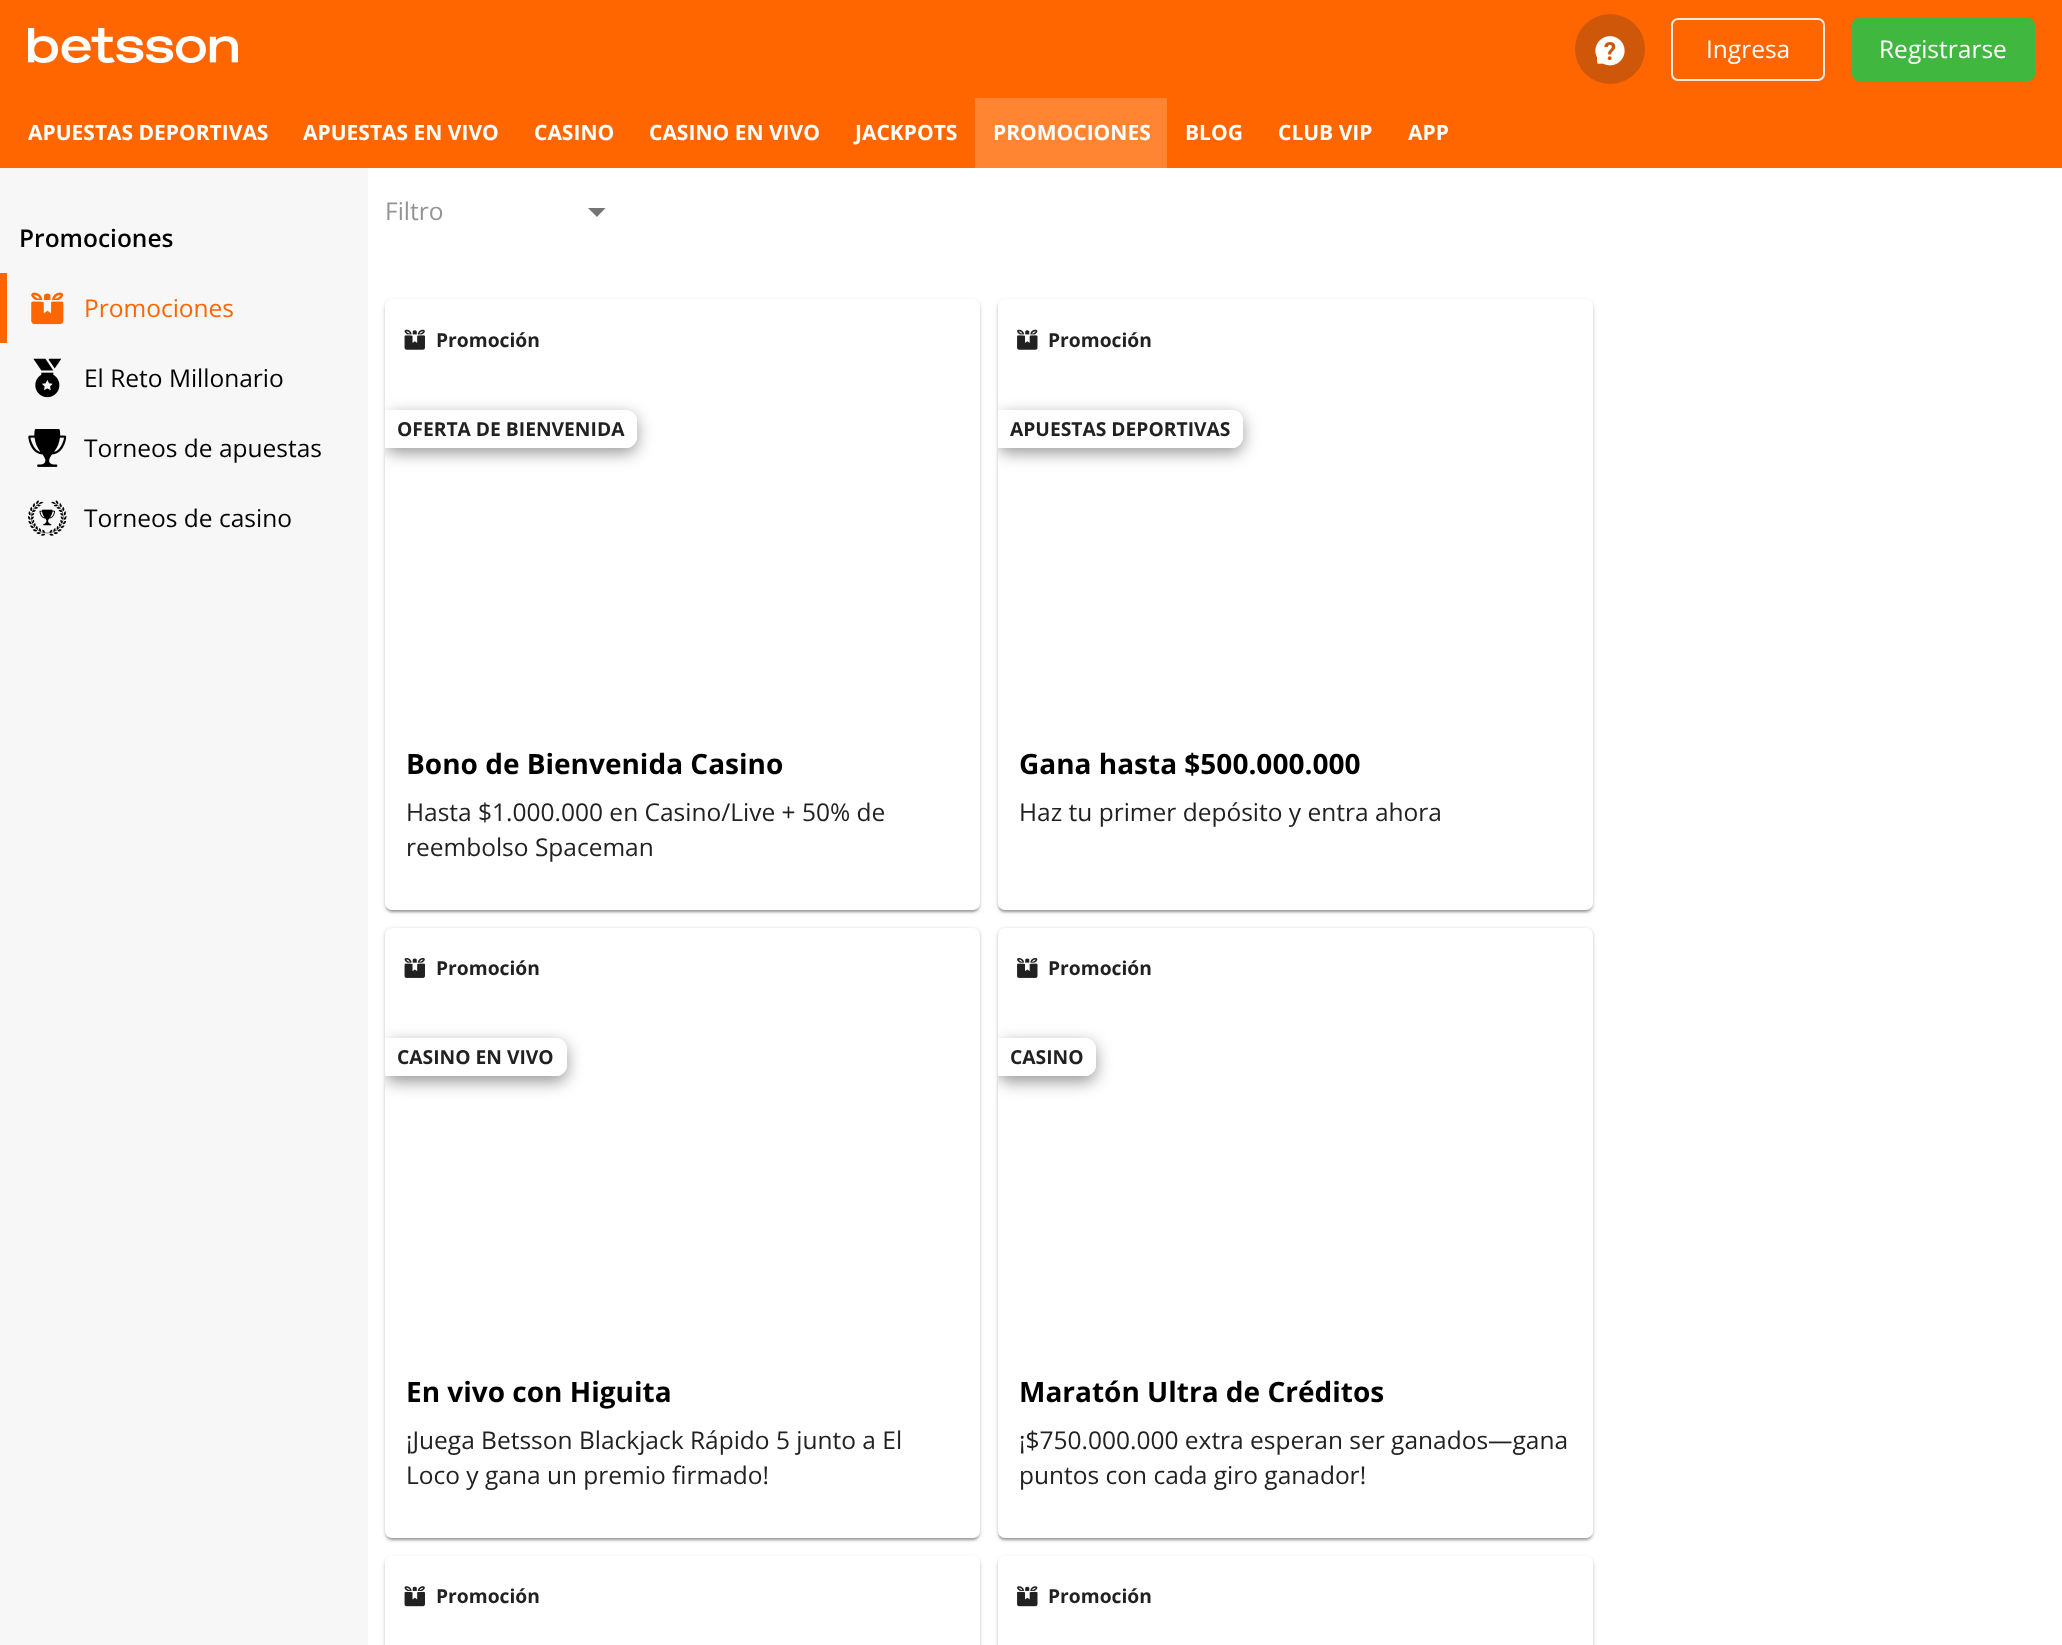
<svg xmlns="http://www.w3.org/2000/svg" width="2062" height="1645">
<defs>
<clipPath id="clip1"><rect x="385" y="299" width="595" height="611" rx="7"/></clipPath>
<clipPath id="clip2"><path d="M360 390h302v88h-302zm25 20h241c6 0 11 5 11 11v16c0 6-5 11-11 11h-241z" clip-rule="evenodd"/></clipPath>
<clipPath id="clip3"><rect x="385" y="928" width="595" height="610" rx="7"/></clipPath>
<clipPath id="clip4"><path d="M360 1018h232v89h-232zm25 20h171c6 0 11 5 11 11v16c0 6-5 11-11 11h-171z" clip-rule="evenodd"/></clipPath>
<clipPath id="clip5"><rect x="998" y="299" width="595" height="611" rx="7"/></clipPath>
<clipPath id="clip6"><path d="M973 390h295v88h-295zm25 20h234c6 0 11 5 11 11v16c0 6-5 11-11 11h-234z" clip-rule="evenodd"/></clipPath>
<clipPath id="clip7"><rect x="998" y="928" width="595" height="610" rx="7"/></clipPath>
<clipPath id="clip8"><path d="M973 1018h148v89h-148zm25 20h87c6 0 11 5 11 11v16c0 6-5 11-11 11h-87z" clip-rule="evenodd"/></clipPath>
</defs>
<rect width="100%" height="100%" fill="#fff"/>
<rect width="2062" height="168" fill="#f60"/>
<image x="28" y="28" width="210" height="35" href="media/1.png"/>
<circle cx="1610" cy="49" r="35" fill="#ce570a"/>
<image x="1595" y="36" width="30" height="30" href="media/2.png"/>
<rect x="1672" y="19" width="152" height="61" rx="6" fill="none" stroke="#ffebde" stroke-width="2"/>
<text x="1706" y="58" style="font-family:Open Sans;font-size:24.5px;fill:#fff">Ingresa</text>
<rect x="1852" y="18" width="183" height="63" rx="7" fill="#40b840"/>
<text x="1879" y="58" style="font-family:Open Sans;font-size:24.5px;fill:#fff">Registrarse</text>
<text x="28" y="140" style="font-family:Open Sans;font-size:21px;font-weight:bold;fill:#fff">APUESTAS DEPORTIVAS</text>
<text x="303" y="140" style="font-family:Open Sans;font-size:21px;font-weight:bold;fill:#fff">APUESTAS EN VIVO</text>
<text x="534" y="140" style="font-family:Open Sans;font-size:21px;font-weight:bold;fill:#fff">CASINO</text>
<text x="649" y="140" style="font-family:Open Sans;font-size:21px;font-weight:bold;fill:#fff">CASINO EN VIVO</text>
<text x="855" y="140" style="font-family:Open Sans;font-size:21px;font-weight:bold;fill:#fff">JACKPOTS</text>
<rect x="975" y="98" width="192" height="70" fill="#ff8533"/>
<text x="993" y="140" style="font-family:Open Sans;font-size:21px;font-weight:bold;fill:#fff">PROMOCIONES</text>
<text x="1185" y="140" style="font-family:Open Sans;font-size:21px;font-weight:bold;fill:#fff">BLOG</text>
<text x="1278" y="140" style="font-family:Open Sans;font-size:21px;font-weight:bold;fill:#fff">CLUB VIP</text>
<text x="1408" y="140" style="font-family:Open Sans;font-size:21px;font-weight:bold;fill:#fff">APP</text>
<rect x="385" y="301" width="595" height="611" rx="7" fill="#0000001f" filter="blur(2.5px)"/>
<rect x="385" y="301" width="595" height="611" rx="7" fill="#00000024" filter="blur(1px)"/>
<rect x="387" y="305" width="591" height="607" rx="5" fill="#00000033" filter="blur(1px)"/>
<rect x="385" y="299" width="595" height="611" rx="7" fill="#fff"/>
<g clip-path="url(#clip1)">
<g clip-path="url(#clip2)">
<rect x="385" y="415" width="252" height="38" rx="11" fill="#00000066" filter="blur(8px)"/>
</g>
</g>
<rect x="385" y="929" width="595" height="611" rx="7" fill="#0000001f" filter="blur(2.5px)"/>
<rect x="385" y="929" width="595" height="611" rx="7" fill="#00000024" filter="blur(1px)"/>
<rect x="387" y="933" width="591" height="607" rx="5" fill="#00000033" filter="blur(1px)"/>
<rect x="385" y="928" width="595" height="610" rx="7" fill="#fff"/>
<g clip-path="url(#clip3)">
<g clip-path="url(#clip4)">
<rect x="385" y="1043" width="182" height="39" rx="11" fill="#00000066" filter="blur(8px)"/>
</g>
</g>
<rect y="168" width="368" height="1477" fill="#f7f7f7"/>
<text x="19" y="247" style="font-family:Open Sans;font-size:24.5px;font-weight:600;fill:#000">Promociones</text>
<rect y="273" width="7" height="70" fill="#f60"/>
<image x="31" y="292" width="33" height="33" href="media/3.png"/>
<text x="84" y="317" style="font-family:Open Sans;font-size:24.5px;fill:#f60">Promociones</text>
<image x="33" y="358" width="29" height="40" href="media/4.png"/>
<text x="84" y="387" style="font-family:Open Sans;font-size:24.5px;fill:#000">El Reto Millonario</text>
<image x="28" y="429" width="39" height="38" href="media/5.png"/>
<text x="84" y="457" style="font-family:Open Sans;font-size:24.5px;fill:#000">Torneos de apuestas</text>
<image x="28" y="500" width="39" height="36" href="media/6.png"/>
<text x="84" y="527" style="font-family:Open Sans;font-size:24.5px;fill:#000">Torneos de casino</text>
<text x="385" y="220" style="font-family:Open Sans;font-size:24.5px;fill:#949494">Filtro</text>
<path d="M588 208h17.5l-8.5 9z" fill="#757575"/>
<image x="404" y="329" width="21" height="21" href="media/7.png"/>
<text x="436" y="347" style="font-family:Open Sans;font-size:19.25px;font-weight:bold;fill:#212121">Promoción</text>
<path d="M385 410h241c6 0 11 5 11 11v16c0 6-5 11-11 11h-241z" fill="#ffffffe6"/>
<text x="397" y="436" style="font-family:Open Sans;font-size:19.25px;font-weight:bold;fill:#212121">OFERTA DE BIENVENIDA</text>
<text x="406" y="774" style="font-family:Open Sans;font-size:28px;font-weight:bold;fill:#000">Bono de Bienvenida Casino</text>
<text x="406" y="821" style="font-family:Open Sans;font-size:24.5px;fill:#212121">Hasta $1.000.000 en Casino/Live + 50% de</text>
<text x="406" y="856" style="font-family:Open Sans;font-size:24.5px;fill:#212121">reembolso Spaceman</text>
<rect x="998" y="301" width="595" height="611" rx="7" fill="#0000001f" filter="blur(2.5px)"/>
<rect x="998" y="301" width="595" height="611" rx="7" fill="#00000024" filter="blur(1px)"/>
<rect x="999" y="305" width="592" height="607" rx="5" fill="#00000033" filter="blur(1px)"/>
<rect x="998" y="299" width="595" height="611" rx="7" fill="#fff"/>
<image x="1017" y="329" width="21" height="21" href="media/8.png"/>
<text x="1048" y="347" style="font-family:Open Sans;font-size:19.25px;font-weight:bold;fill:#212121">Promoción</text>
<g clip-path="url(#clip5)">
<g clip-path="url(#clip6)">
<rect x="998" y="415" width="245" height="38" rx="11" fill="#00000066" filter="blur(8px)"/>
</g>
</g>
<path d="M998 410h234c6 0 11 5 11 11v16c0 6-5 11-11 11h-234z" fill="#ffffffe6"/>
<text x="1010" y="436" style="font-family:Open Sans;font-size:19.25px;font-weight:bold;fill:#212121">APUESTAS DEPORTIVAS</text>
<text x="1019" y="774" style="font-family:Open Sans;font-size:28px;font-weight:bold;fill:#000">Gana hasta $500.000.000</text>
<text x="1019" y="821" style="font-family:Open Sans;font-size:24.5px;fill:#212121">Haz tu primer depósito y entra ahora</text>
<image x="404" y="958" width="21" height="20" href="media/9.png"/>
<text x="436" y="975" style="font-family:Open Sans;font-size:19.25px;font-weight:bold;fill:#212121">Promoción</text>
<path d="M385 1038h171c6 0 11 5 11 11v16c0 6-5 11-11 11h-171z" fill="#ffffffe6"/>
<text x="397" y="1064" style="font-family:Open Sans;font-size:19.25px;font-weight:bold;fill:#212121">CASINO EN VIVO</text>
<text x="406" y="1402" style="font-family:Open Sans;font-size:28px;font-weight:bold;fill:#000">En vivo con Higuita</text>
<text x="406" y="1449" style="font-family:Open Sans;font-size:24.5px;fill:#212121">¡Juega Betsson Blackjack Rápido 5 junto a El</text>
<text x="406" y="1484" style="font-family:Open Sans;font-size:24.5px;fill:#212121">Loco y gana un premio firmado!</text>
<rect x="998" y="929" width="595" height="611" rx="7" fill="#0000001f" filter="blur(2.5px)"/>
<rect x="998" y="929" width="595" height="611" rx="7" fill="#00000024" filter="blur(1px)"/>
<rect x="999" y="933" width="592" height="607" rx="5" fill="#00000033" filter="blur(1px)"/>
<rect x="998" y="928" width="595" height="610" rx="7" fill="#fff"/>
<image x="1017" y="958" width="21" height="20" href="media/10.png"/>
<text x="1048" y="975" style="font-family:Open Sans;font-size:19.25px;font-weight:bold;fill:#212121">Promoción</text>
<g clip-path="url(#clip7)">
<g clip-path="url(#clip8)">
<rect x="998" y="1043" width="98" height="39" rx="11" fill="#00000066" filter="blur(8px)"/>
</g>
</g>
<path d="M998 1038h87c6 0 11 5 11 11v16c0 6-5 11-11 11h-87z" fill="#ffffffe6"/>
<text x="1010" y="1064" style="font-family:Open Sans;font-size:19.25px;font-weight:bold;fill:#212121">CASINO</text>
<text x="1019" y="1402" style="font-family:Open Sans;font-size:28px;font-weight:bold;fill:#000">Maratón Ultra de Créditos</text>
<text x="1019" y="1449" style="font-family:Open Sans;font-size:24.5px;fill:#212121">¡$750.000.000 extra esperan ser ganados—gana</text>
<text x="1019" y="1484" style="font-family:Open Sans;font-size:24.5px;fill:#212121">puntos con cada giro ganador!</text>
<rect x="385" y="1558" width="595" height="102" rx="7" fill="#0000001f" filter="blur(2.5px)"/>
<rect x="385" y="1558" width="595" height="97" rx="7" fill="#00000024" filter="blur(1px)"/>
<path d="M392 1556h581c4 0 7 3 7 7v82h-595v-82c0-4 3-7 7-7z" fill="#fff"/>
<image x="404" y="1586" width="21" height="21" href="media/11.png"/>
<text x="436" y="1603" style="font-family:Open Sans;font-size:19.25px;font-weight:bold;fill:#212121">Promoción</text>
<rect x="998" y="1558" width="595" height="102" rx="7" fill="#0000001f" filter="blur(2.5px)"/>
<rect x="998" y="1558" width="595" height="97" rx="7" fill="#00000024" filter="blur(1px)"/>
<path d="M1005 1556h581c4 0 7 3 7 7v82h-595v-82c0-4 3-7 7-7z" fill="#fff"/>
<image x="1017" y="1586" width="21" height="21" href="media/12.png"/>
<text x="1048" y="1603" style="font-family:Open Sans;font-size:19.25px;font-weight:bold;fill:#212121">Promoción</text>
</svg>
